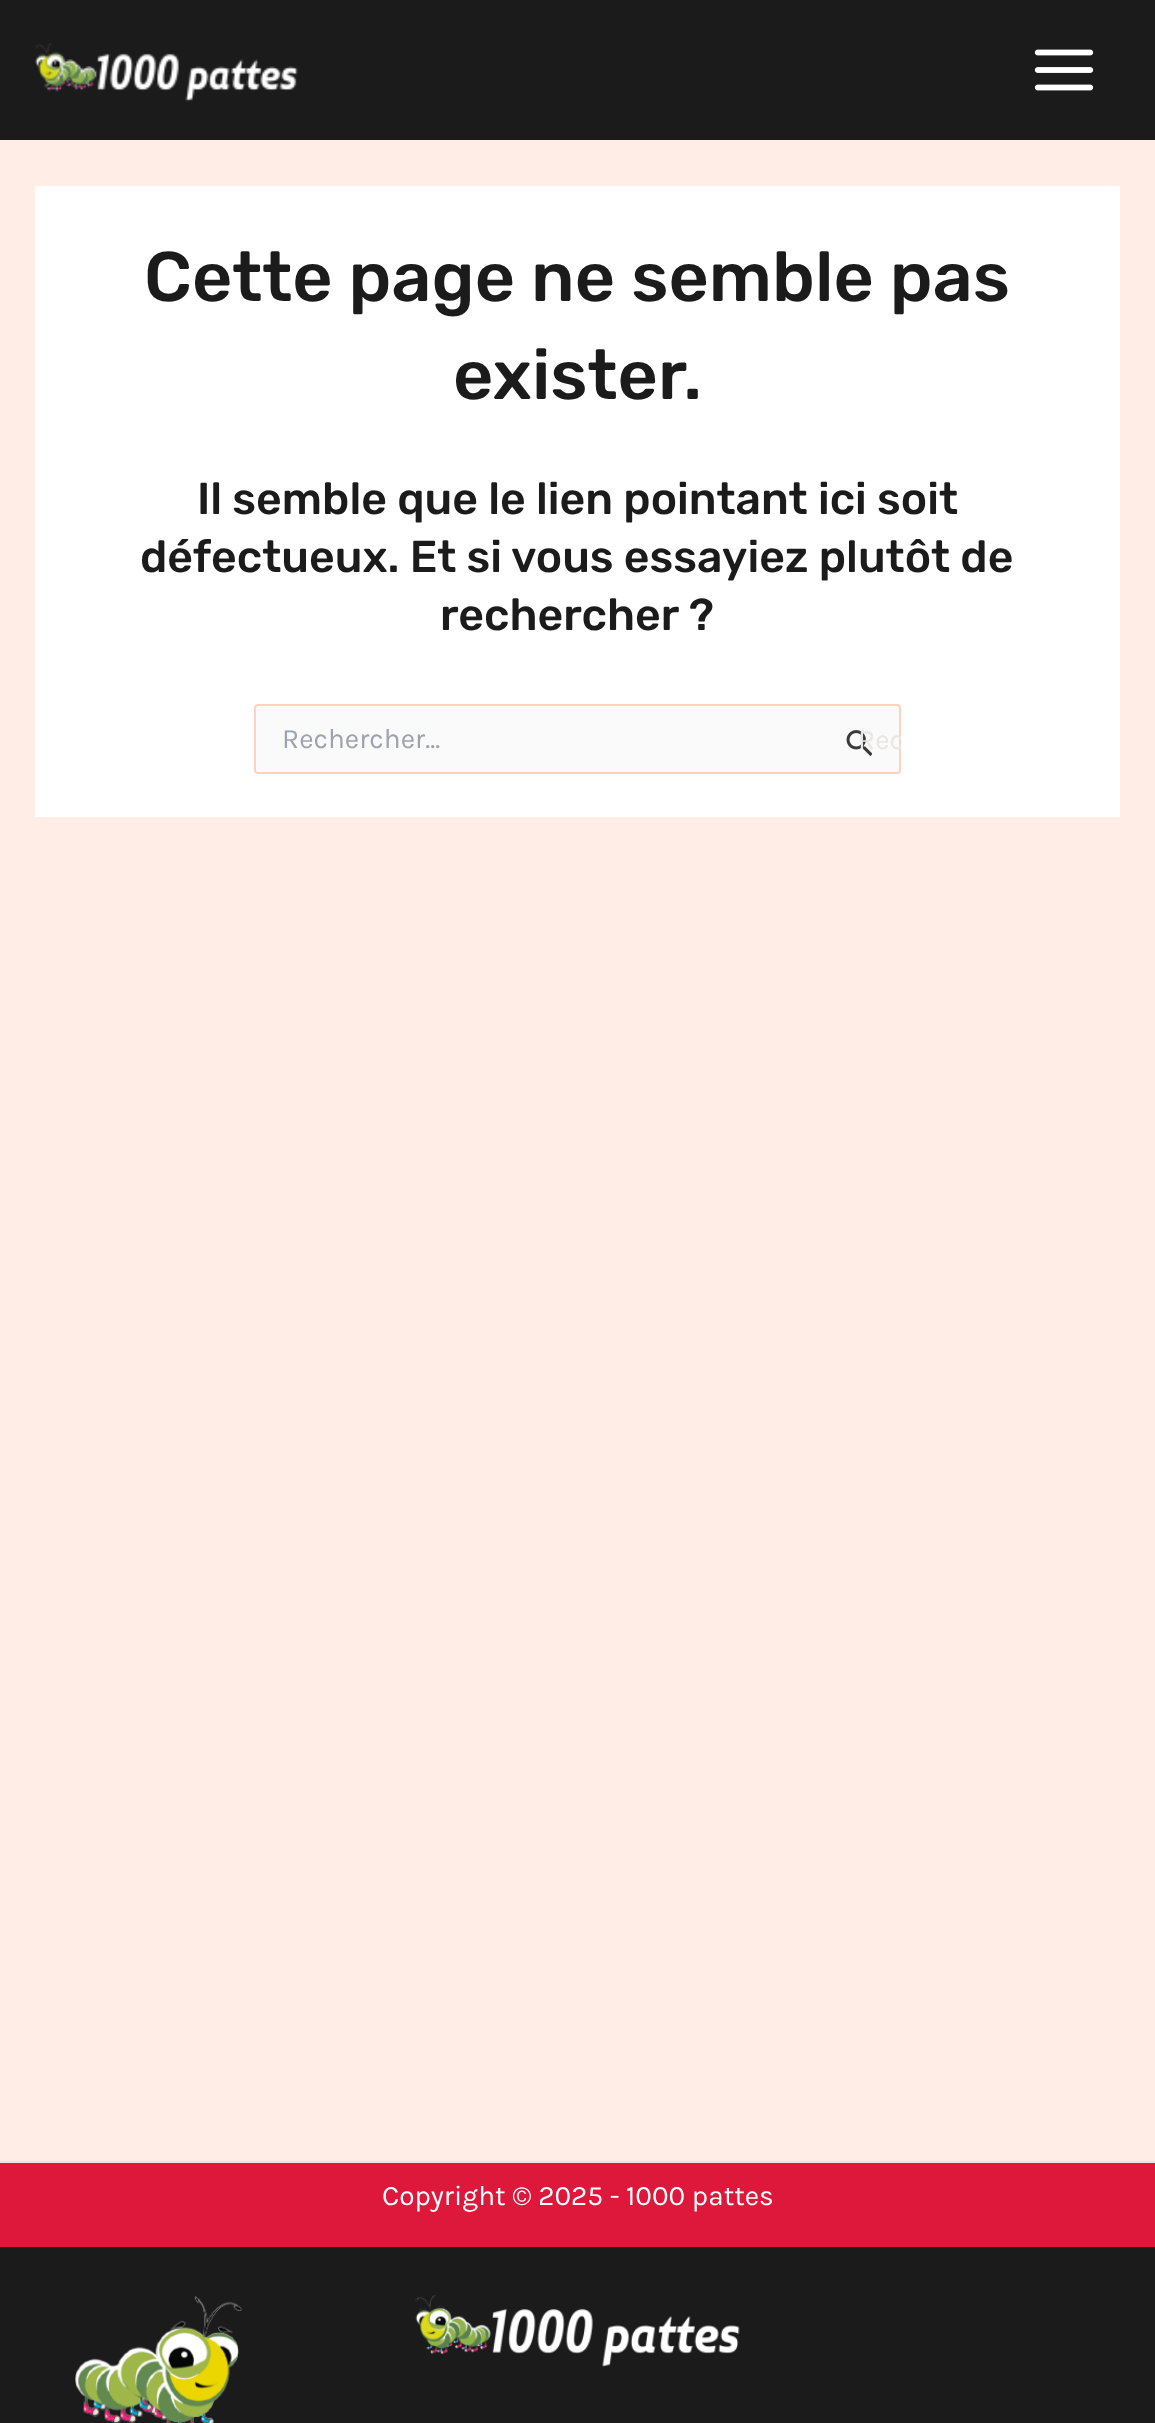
<svg xmlns="http://www.w3.org/2000/svg" width="1155" height="2423">
<defs>
<clipPath id="clip1"><rect x="823" y="704" width="78" height="73" rx="4"/></clipPath>
</defs>
<rect width="100%" height="100%" fill="#ffede6"/>
<rect width="1155" height="140" fill="#1b1b1b"/>
<image x="35" y="43" width="263" height="59" href="media/1.png"/>
<image x="1034" y="49" width="60" height="42" href="media/2.png"/>
<rect x="35" y="186" width="1085" height="631" fill="#fff"/>
<text x="144" y="301" style="font-family:Rubik;font-size:70px;font-weight:500;fill:#1b1b1b">Cette page ne semble pas</text>
<text x="453" y="399" style="font-family:Rubik;font-size:70px;font-weight:500;fill:#1b1b1b">exister.</text>
<text x="197" y="514" style="font-family:Rubik;font-size:44.6px;font-weight:500;fill:#1b1b1b">Il semble que le lien pointant ici soit</text>
<text x="140" y="572" style="font-family:Rubik;font-size:44.6px;font-weight:500;fill:#1b1b1b">défectueux. Et si vous essayiez plutôt de</text>
<text x="440" y="630" style="font-family:Rubik;font-size:44.6px;font-weight:500;fill:#1b1b1b">rechercher ?</text>
<rect x="255" y="705" width="645" height="68" rx="3" fill="#fafafa" stroke="#ffd1bf" stroke-width="2"/>
<text x="282" y="748" style="font-family:Karla;font-size:28px;fill:#9ca3af">Rechercher...</text>
<image x="846" y="730" width="26" height="26" href="media/3.png"/>
<g clip-path="url(#clip1)">
<text x="858" y="749" style="font-family:Karla;font-size:28px;fill:#e8e5e4">Rec</text>
</g>
<rect y="2163" width="1155" height="84" fill="#dd183b"/>
<rect y="2161" width="1155" height="2" fill="#e6e6e6"/>
<text x="382" y="2205" style="font-family:Karla;font-size:28px;fill:#fff">Copyright © 2025 - 1000 pattes</text>
<rect y="2247" width="1155" height="176" fill="#1b1b1b"/>
<image x="415" y="2295" width="325" height="72" href="media/4.png"/>
<image x="75" y="2296" width="168" height="127" href="media/5.png"/>
</svg>
